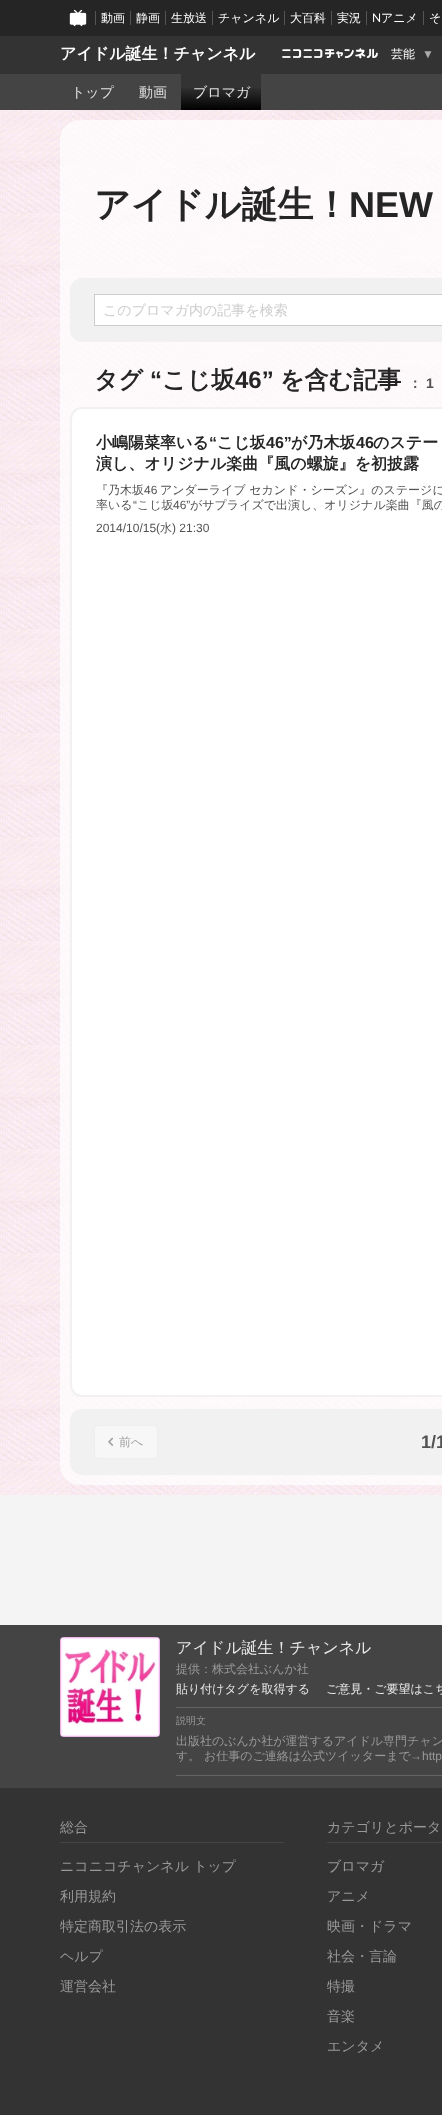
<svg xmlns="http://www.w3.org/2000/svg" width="442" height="2115">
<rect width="100%" height="100%" fill="#fff"/>
<rect width="442" height="36" fill="#252525"/>
<image x="69" y="9" width="18" height="18" href="media/1.png"/>
<rect x="95" y="11" width="1" height="14" fill="#555"/>
<text x="101" y="22" style="font-family:WenQuanYi Zen Hei;font-size:12px;font-weight:500;fill:#fff">動画</text>
<rect x="130" y="11" width="1" height="14" fill="#555"/>
<text x="136" y="22" style="font-family:WenQuanYi Zen Hei;font-size:12px;font-weight:500;fill:#fff">静画</text>
<rect x="165" y="11" width="1" height="14" fill="#555"/>
<text x="171" y="22" style="font-family:WenQuanYi Zen Hei;font-size:12px;font-weight:500;fill:#fff">生放送</text>
<rect x="212" y="11" width="1" height="14" fill="#555"/>
<text x="218" y="22" style="font-family:WenQuanYi Zen Hei;font-size:12px;font-weight:500;fill:#fff">チャンネル</text>
<rect x="284" y="11" width="1" height="14" fill="#555"/>
<text x="290" y="22" style="font-family:WenQuanYi Zen Hei;font-size:12px;font-weight:500;fill:#fff">大百科</text>
<rect x="331" y="11" width="1" height="14" fill="#555"/>
<text x="337" y="22" style="font-family:WenQuanYi Zen Hei;font-size:12px;font-weight:500;fill:#fff">実況</text>
<rect x="366" y="11" width="1" height="14" fill="#555"/>
<text x="372" y="22" style="font-family:Lato;font-size:12px;fill:#fff">N</text>
<text x="381" y="22" style="font-family:WenQuanYi Zen Hei;font-size:12px;font-weight:500;fill:#fff">アニメ</text>
<rect x="423" y="11" width="1" height="14" fill="#555"/>
<text x="429" y="22" style="font-family:WenQuanYi Zen Hei;font-size:12px;font-weight:500;fill:#fff">そ</text>
<rect y="36" width="442" height="38" fill="#333"/>
<text x="60" y="59" style="font-family:WenQuanYi Zen Hei;font-size:16px;font-weight:bold;fill:#fff">アイドル誕生！チャンネル</text>
<image x="282" y="48" width="96" height="11" href="media/2.png"/>
<text x="391" y="58" style="font-family:WenQuanYi Zen Hei;font-size:12px;font-weight:500;fill:#fff">芸能</text>
<text x="422" y="58" style="font-family:Liberation Sans;font-size:12px;fill:#aaa">▼</text>
<rect y="74" width="442" height="36" fill="#444"/>
<text x="71" y="97" style="font-family:WenQuanYi Zen Hei;font-size:14px;font-weight:500;fill:#e0e0e0">トップ</text>
<text x="139" y="97" style="font-family:WenQuanYi Zen Hei;font-size:14px;font-weight:500;fill:#e0e0e0">動画</text>
<rect x="181" y="74" width="80" height="36" fill="#333"/>
<image x="181" y="88" width="80" height="22" href="media/3.png"/>
<text x="193" y="97" style="font-family:WenQuanYi Zen Hei;font-size:14px;font-weight:500;fill:#e0e0e0">ブロマガ</text>
<image x="0" y="110" width="442" height="1385" href="media/4.png"/>
<rect x="60" y="120" width="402" height="1365" rx="20" fill="#ffffffb3"/>
<text x="94" y="217" style="font-family:WenQuanYi Zen Hei;font-size:36px;font-weight:bold;fill:#252525">アイドル誕生！</text>
<text x="349" y="217" style="font-family:Liberation Sans;font-size:36px;font-weight:bold;fill:#252525">NEW</text>
<rect x="70" y="278" width="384" height="64" rx="12" fill="#f1f1f1"/>
<rect x="94.5" y="294.5" width="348" height="31" fill="#fff" stroke="#cdcdcd"/>
<text x="103" y="315" style="font-family:WenQuanYi Zen Hei;font-size:14px;font-weight:500;fill:#cdcdcd">このブロマガ内の記事を検索</text>
<text x="94" y="388" style="font-family:WenQuanYi Zen Hei;font-size:24px;font-weight:bold;fill:#252525">タグ</text>
<text x="150" y="388" style="font-family:Liberation Sans;font-size:24px;font-weight:bold;fill:#252525">“</text>
<text x="162" y="388" style="font-family:WenQuanYi Zen Hei;font-size:24px;font-weight:bold;fill:#252525">こじ坂</text>
<text x="235" y="388" style="font-family:Liberation Sans;font-size:24px;font-weight:bold;fill:#252525">46”</text>
<text x="280" y="388" style="font-family:WenQuanYi Zen Hei;font-size:24px;font-weight:bold;fill:#252525">を含む記事</text>
<text x="408" y="388" style="font-family:WenQuanYi Zen Hei;font-size:14px;font-weight:bold;fill:#525252">：</text>
<text x="426" y="388" style="font-family:Liberation Sans;font-size:14px;font-weight:bold;fill:#525252">1</text>
<rect x="71" y="408" width="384" height="988" rx="11" fill="#fff" stroke="#f1f1f1" stroke-width="2"/>
<text x="96" y="448" style="font-family:WenQuanYi Zen Hei;font-size:16px;font-weight:bold;fill:#252525">小嶋陽菜率いる</text>
<text x="209" y="448" style="font-family:Liberation Sans;font-size:16px;font-weight:bold;fill:#252525">“</text>
<text x="217" y="448" style="font-family:WenQuanYi Zen Hei;font-size:16px;font-weight:bold;fill:#252525">こじ坂</text>
<text x="266" y="448" style="font-family:Liberation Sans;font-size:16px;font-weight:bold;fill:#252525">46”</text>
<text x="291" y="448" style="font-family:WenQuanYi Zen Hei;font-size:16px;font-weight:bold;fill:#252525">が乃木坂</text>
<text x="356" y="448" style="font-family:Liberation Sans;font-size:16px;font-weight:bold;fill:#252525">46</text>
<text x="373" y="448" style="font-family:WenQuanYi Zen Hei;font-size:16px;font-weight:bold;fill:#252525">のステー</text>
<text x="96" y="469" style="font-family:WenQuanYi Zen Hei;font-size:16px;font-weight:bold;fill:#252525">演し、オリジナル楽曲『風の螺旋』を初披露</text>
<text x="96" y="494" style="font-family:WenQuanYi Zen Hei;font-size:12px;font-weight:500;fill:#525252">『乃木坂</text>
<text x="144" y="494" style="font-family:Liberation Sans;font-size:12px;fill:#525252">46</text>
<text x="160" y="494" style="font-family:WenQuanYi Zen Hei;font-size:12px;font-weight:500;fill:#525252">アンダーライブ セカンド・シーズン』のステージに</text>
<text x="96" y="509" style="font-family:WenQuanYi Zen Hei;font-size:12px;font-weight:500;fill:#525252">率いる</text>
<text x="133" y="509" style="font-family:Liberation Sans;font-size:12px;fill:#525252">“</text>
<text x="137" y="509" style="font-family:WenQuanYi Zen Hei;font-size:12px;font-weight:500;fill:#525252">こじ坂</text>
<text x="173" y="509" style="font-family:Liberation Sans;font-size:12px;fill:#525252">46”</text>
<text x="190" y="509" style="font-family:WenQuanYi Zen Hei;font-size:12px;font-weight:500;fill:#525252">がサプライズで出演し、オリジナル楽曲『風の</text>
<text x="96" y="532" style="font-family:Liberation Sans;font-size:12px;fill:#525252">2014/10/15(</text>
<text x="160" y="532" style="font-family:WenQuanYi Zen Hei;font-size:12px;font-weight:500;fill:#525252">水</text>
<text x="172" y="532" style="font-family:Liberation Sans;font-size:12px;fill:#525252">) 21:30</text>
<rect x="70" y="1409" width="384" height="66" rx="12" fill="#f1f1f1"/>
<rect x="94.5" y="1425.5" width="63" height="33" rx="3.5" fill="#f7f7f7" stroke="#eee"/>
<image x="108" y="1437" width="6" height="9" href="media/5.png"/>
<text x="119" y="1446" style="font-family:WenQuanYi Zen Hei;font-size:12px;font-weight:500;fill:#9f9f9f">前へ</text>
<text x="421" y="1448" style="font-family:Liberation Sans;font-size:18px;font-weight:bold;fill:#525252">1/1</text>
<rect y="1788" width="442" height="327" fill="#333"/>
<rect y="1495" width="442" height="130" fill="#f4f4f4"/>
<rect y="1625" width="442" height="163" fill="#444"/>
<image x="60" y="1637" width="100" height="100" href="media/6.png"/>
<text x="176" y="1653" style="font-family:WenQuanYi Zen Hei;font-size:16px;font-weight:500;fill:#e9e9e9">アイドル誕生！チャンネル</text>
<text x="176" y="1673" style="font-family:WenQuanYi Zen Hei;font-size:12px;font-weight:500;fill:#999">提供：株式会社ぶんか社</text>
<text x="176" y="1693" style="font-family:WenQuanYi Zen Hei;font-size:12px;font-weight:500;fill:#e9e9e9">貼り付けタグを取得する</text>
<text x="326" y="1693" style="font-family:WenQuanYi Zen Hei;font-size:12px;font-weight:500;fill:#e9e9e9">ご意見・ご要望はこち</text>
<rect x="176" y="1707" width="266" height="1" fill="#636363"/>
<text x="176" y="1724" style="font-family:WenQuanYi Zen Hei;font-size:10px;font-weight:500;fill:#999">説明文</text>
<text x="176" y="1745" style="font-family:WenQuanYi Zen Hei;font-size:12px;font-weight:500;fill:#999">出版社のぶんか社が運営するアイドル専門チャン</text>
<text x="176" y="1760" style="font-family:WenQuanYi Zen Hei;font-size:12px;font-weight:500;fill:#999">す。 お仕事のご連絡は公式ツイッターまで</text>
<text x="410" y="1760" style="font-family:Liberation Sans;font-size:12px;fill:#999">→http</text>
<rect x="176" y="1775" width="266" height="1" fill="#636363"/>
<rect x="60" y="1842" width="224" height="1" fill="#444"/>
<text x="60" y="1832" style="font-family:WenQuanYi Zen Hei;font-size:14px;font-weight:500;fill:#999">総合</text>
<text x="60" y="1871" style="font-family:WenQuanYi Zen Hei;font-size:14px;font-weight:500;fill:#999">ニコニコチャンネル トップ</text>
<text x="60" y="1901" style="font-family:WenQuanYi Zen Hei;font-size:14px;font-weight:500;fill:#999">利用規約</text>
<text x="60" y="1931" style="font-family:WenQuanYi Zen Hei;font-size:14px;font-weight:500;fill:#999">特定商取引法の表示</text>
<text x="60" y="1961" style="font-family:WenQuanYi Zen Hei;font-size:14px;font-weight:500;fill:#999">ヘルプ</text>
<text x="60" y="1991" style="font-family:WenQuanYi Zen Hei;font-size:14px;font-weight:500;fill:#999">運営会社</text>
<rect x="327" y="1842" width="115" height="1" fill="#444"/>
<text x="327" y="1832" style="font-family:WenQuanYi Zen Hei;font-size:14px;font-weight:500;fill:#999">カテゴリとポータ</text>
<text x="327" y="1871" style="font-family:WenQuanYi Zen Hei;font-size:14px;font-weight:500;fill:#999">ブロマガ</text>
<text x="327" y="1901" style="font-family:WenQuanYi Zen Hei;font-size:14px;font-weight:500;fill:#999">アニメ</text>
<text x="327" y="1931" style="font-family:WenQuanYi Zen Hei;font-size:14px;font-weight:500;fill:#999">映画・ドラマ</text>
<text x="327" y="1961" style="font-family:WenQuanYi Zen Hei;font-size:14px;font-weight:500;fill:#999">社会・言論</text>
<text x="327" y="1991" style="font-family:WenQuanYi Zen Hei;font-size:14px;font-weight:500;fill:#999">特撮</text>
<text x="327" y="2021" style="font-family:WenQuanYi Zen Hei;font-size:14px;font-weight:500;fill:#999">音楽</text>
<text x="327" y="2051" style="font-family:WenQuanYi Zen Hei;font-size:14px;font-weight:500;fill:#999">エンタメ</text>
</svg>
